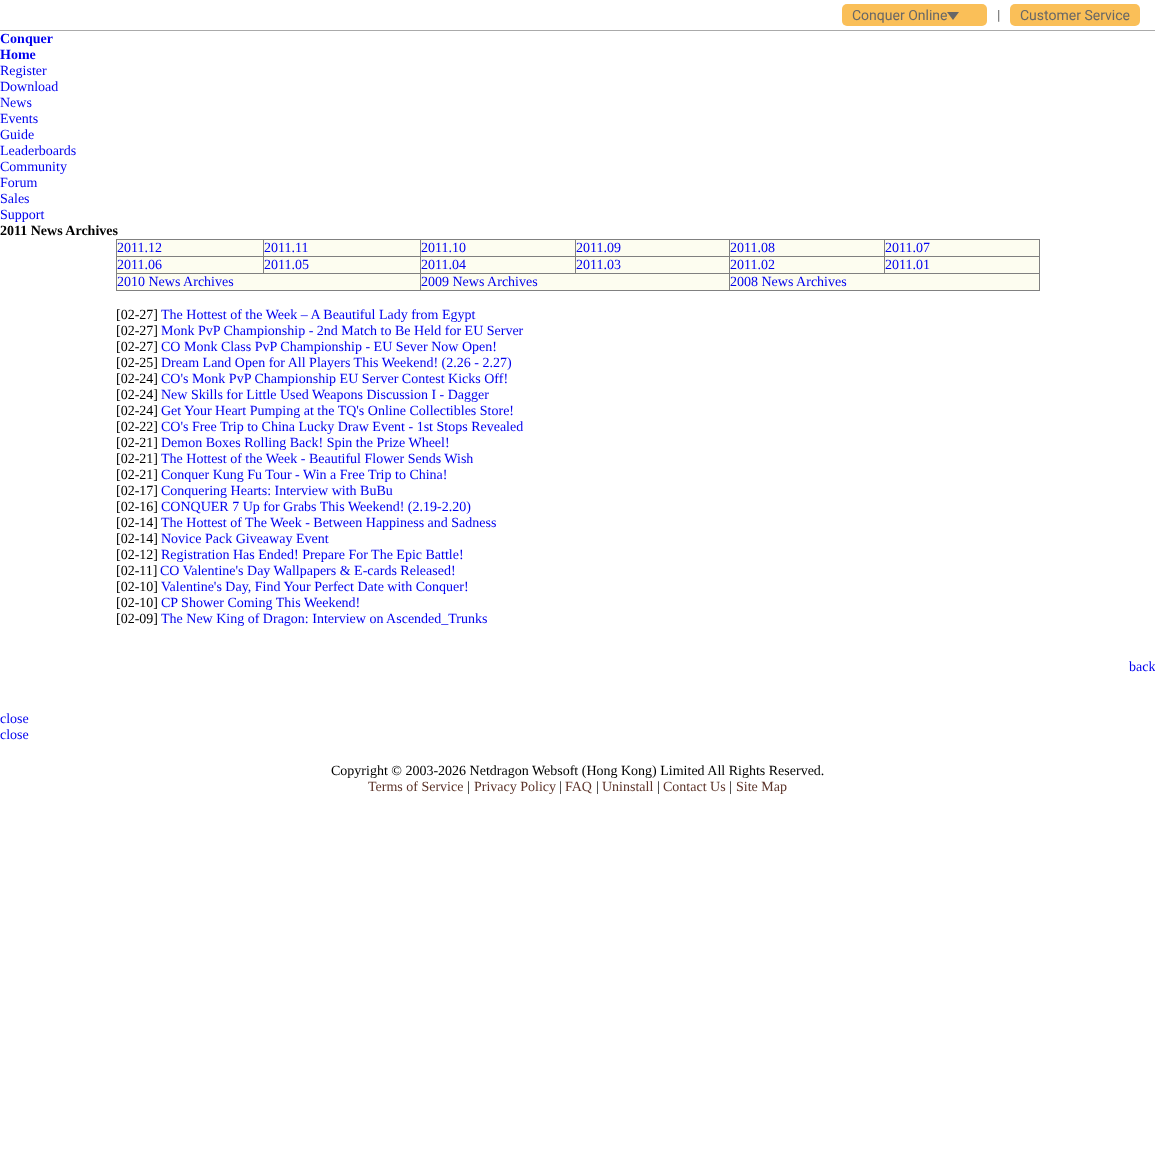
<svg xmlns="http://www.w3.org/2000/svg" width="1155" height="1172">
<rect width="100%" height="100%" fill="#fff"/>
<rect y="30" width="1155" height="1" fill="#aaa"/>
<rect x="842" y="4" width="145" height="22" rx="5" fill="#fabf58"/>
<text x="852" y="20" style="font-family:Roboto;font-size:14px;fill:#676767">Conquer Online</text>
<path d="M947 12h12l-6 8z" fill="#676767"/>
<text x="997" y="20" style="font-family:Roboto;font-size:14px;fill:#676767">|</text>
<rect x="1010" y="4" width="130" height="22" rx="5" fill="#fabf58"/>
<text x="1020" y="20" style="font-family:Roboto;font-size:14px;fill:#676767">Customer Service</text>
<text x="0" y="43" style="font-family:Liberation Serif;font-size:14px;font-weight:bold;fill:#00e">Conquer</text>
<text x="0" y="59" style="font-family:Liberation Serif;font-size:14px;font-weight:bold;fill:#00e">Home</text>
<text x="0" y="75" style="font-family:Liberation Serif;font-size:14px;fill:#00e">Register</text>
<text x="0" y="91" style="font-family:Liberation Serif;font-size:14px;fill:#00e">Download</text>
<text x="0" y="107" style="font-family:Liberation Serif;font-size:14px;fill:#00e">News</text>
<text x="0" y="123" style="font-family:Liberation Serif;font-size:14px;fill:#00e">Events</text>
<text x="0" y="139" style="font-family:Liberation Serif;font-size:14px;fill:#00e">Guide</text>
<text x="0" y="155" style="font-family:Liberation Serif;font-size:14px;fill:#00e">Leaderboards</text>
<text x="0" y="171" style="font-family:Liberation Serif;font-size:14px;fill:#00e">Community</text>
<text x="0" y="187" style="font-family:Liberation Serif;font-size:14px;fill:#00e">Forum</text>
<text x="0" y="203" style="font-family:Liberation Serif;font-size:14px;fill:#00e">Sales</text>
<text x="0" y="219" style="font-family:Liberation Serif;font-size:14px;fill:#00e">Support</text>
<text x="0" y="235" style="font-family:Liberation Serif;font-size:14px;font-weight:bold;fill:#000">2011 News Archives</text>
<rect x="117" y="240" width="922" height="50" fill="#fdfdf0"/>
<rect x="116" y="239" width="924" height="1" fill="#808080"/>
<rect x="1039" y="239" width="1" height="52" fill="#808080"/>
<rect x="116" y="290" width="924" height="1" fill="#808080"/>
<rect x="116" y="239" width="1" height="52" fill="#808080"/>
<text x="117" y="252" style="font-family:Liberation Serif;font-size:14px;fill:#00e">2011.12</text>
<rect x="884" y="256" width="156" height="1" fill="#808080"/>
<rect x="729" y="273" width="311" height="1" fill="#808080"/>
<rect x="884" y="256" width="1" height="18" fill="#808080"/>
<rect x="729" y="256" width="156" height="1" fill="#808080"/>
<rect x="729" y="273" width="1" height="18" fill="#808080"/>
<rect x="420" y="273" width="310" height="1" fill="#808080"/>
<rect x="729" y="256" width="1" height="18" fill="#808080"/>
<rect x="575" y="256" width="155" height="1" fill="#808080"/>
<rect x="575" y="256" width="1" height="18" fill="#808080"/>
<rect x="420" y="256" width="156" height="1" fill="#808080"/>
<rect x="420" y="273" width="1" height="18" fill="#808080"/>
<rect x="116" y="273" width="305" height="1" fill="#808080"/>
<rect x="420" y="256" width="1" height="18" fill="#808080"/>
<rect x="263" y="256" width="158" height="1" fill="#808080"/>
<rect x="263" y="256" width="1" height="18" fill="#808080"/>
<rect x="116" y="256" width="148" height="1" fill="#808080"/>
<rect x="263" y="239" width="1" height="18" fill="#808080"/>
<text x="264" y="252" style="font-family:Liberation Serif;font-size:14px;fill:#00e">2011.11</text>
<rect x="420" y="239" width="1" height="18" fill="#808080"/>
<text x="421" y="252" style="font-family:Liberation Serif;font-size:14px;fill:#00e">2011.10</text>
<rect x="575" y="239" width="1" height="18" fill="#808080"/>
<text x="576" y="252" style="font-family:Liberation Serif;font-size:14px;fill:#00e">2011.09</text>
<rect x="729" y="239" width="1" height="18" fill="#808080"/>
<text x="730" y="252" style="font-family:Liberation Serif;font-size:14px;fill:#00e">2011.08</text>
<rect x="884" y="239" width="1" height="18" fill="#808080"/>
<text x="885" y="252" style="font-family:Liberation Serif;font-size:14px;fill:#00e">2011.07</text>
<text x="117" y="269" style="font-family:Liberation Serif;font-size:14px;fill:#00e">2011.06</text>
<text x="264" y="269" style="font-family:Liberation Serif;font-size:14px;fill:#00e">2011.05</text>
<text x="421" y="269" style="font-family:Liberation Serif;font-size:14px;fill:#00e">2011.04</text>
<text x="576" y="269" style="font-family:Liberation Serif;font-size:14px;fill:#00e">2011.03</text>
<text x="730" y="269" style="font-family:Liberation Serif;font-size:14px;fill:#00e">2011.02</text>
<text x="885" y="269" style="font-family:Liberation Serif;font-size:14px;fill:#00e">2011.01</text>
<text x="117" y="286" style="font-family:Liberation Serif;font-size:14px;fill:#00e">2010 News Archives</text>
<text x="421" y="286" style="font-family:Liberation Serif;font-size:14px;fill:#00e">2009 News Archives</text>
<text x="730" y="286" style="font-family:Liberation Serif;font-size:14px;fill:#00e">2008 News Archives</text>
<text x="116" y="319" style="font-family:Liberation Serif;font-size:14px;fill:#000">[02-27]</text>
<text x="161" y="319" style="font-family:Liberation Serif;font-size:14px;fill:#00e">The Hottest of the Week – A Beautiful Lady from Egypt</text>
<text x="116" y="335" style="font-family:Liberation Serif;font-size:14px;fill:#000">[02-27]</text>
<text x="161" y="335" style="font-family:Liberation Serif;font-size:14px;fill:#00e">Monk PvP Championship - 2nd Match to Be Held for EU Server</text>
<text x="116" y="351" style="font-family:Liberation Serif;font-size:14px;fill:#000">[02-27]</text>
<text x="161" y="351" style="font-family:Liberation Serif;font-size:14px;fill:#00e">CO Monk Class PvP Championship - EU Sever Now Open!</text>
<text x="116" y="367" style="font-family:Liberation Serif;font-size:14px;fill:#000">[02-25]</text>
<text x="161" y="367" style="font-family:Liberation Serif;font-size:14px;fill:#00e">Dream Land Open for All Players This Weekend! (2.26 - 2.27)</text>
<text x="116" y="383" style="font-family:Liberation Serif;font-size:14px;fill:#000">[02-24]</text>
<text x="161" y="383" style="font-family:Liberation Serif;font-size:14px;fill:#00e">CO's Monk PvP Championship EU Server Contest Kicks Off!</text>
<text x="116" y="399" style="font-family:Liberation Serif;font-size:14px;fill:#000">[02-24]</text>
<text x="161" y="399" style="font-family:Liberation Serif;font-size:14px;fill:#00e">New Skills for Little Used Weapons Discussion I - Dagger</text>
<text x="116" y="415" style="font-family:Liberation Serif;font-size:14px;fill:#000">[02-24]</text>
<text x="161" y="415" style="font-family:Liberation Serif;font-size:14px;fill:#00e">Get Your Heart Pumping at the TQ's Online Collectibles Store!</text>
<text x="116" y="431" style="font-family:Liberation Serif;font-size:14px;fill:#000">[02-22]</text>
<text x="161" y="431" style="font-family:Liberation Serif;font-size:14px;fill:#00e">CO's Free Trip to China Lucky Draw Event - 1st Stops Revealed</text>
<text x="116" y="447" style="font-family:Liberation Serif;font-size:14px;fill:#000">[02-21]</text>
<text x="161" y="447" style="font-family:Liberation Serif;font-size:14px;fill:#00e">Demon Boxes Rolling Back! Spin the Prize Wheel!</text>
<text x="116" y="463" style="font-family:Liberation Serif;font-size:14px;fill:#000">[02-21]</text>
<text x="161" y="463" style="font-family:Liberation Serif;font-size:14px;fill:#00e">The Hottest of the Week - Beautiful Flower Sends Wish</text>
<text x="116" y="479" style="font-family:Liberation Serif;font-size:14px;fill:#000">[02-21]</text>
<text x="161" y="479" style="font-family:Liberation Serif;font-size:14px;fill:#00e">Conquer Kung Fu Tour - Win a Free Trip to China!</text>
<text x="116" y="495" style="font-family:Liberation Serif;font-size:14px;fill:#000">[02-17]</text>
<text x="161" y="495" style="font-family:Liberation Serif;font-size:14px;fill:#00e">Conquering Hearts: Interview with BuBu</text>
<text x="116" y="511" style="font-family:Liberation Serif;font-size:14px;fill:#000">[02-16]</text>
<text x="161" y="511" style="font-family:Liberation Serif;font-size:14px;fill:#00e">CONQUER 7 Up for Grabs This Weekend! (2.19-2.20)</text>
<text x="116" y="527" style="font-family:Liberation Serif;font-size:14px;fill:#000">[02-14]</text>
<text x="161" y="527" style="font-family:Liberation Serif;font-size:14px;fill:#00e">The Hottest of The Week - Between Happiness and Sadness</text>
<text x="116" y="543" style="font-family:Liberation Serif;font-size:14px;fill:#000">[02-14]</text>
<text x="161" y="543" style="font-family:Liberation Serif;font-size:14px;fill:#00e">Novice Pack Giveaway Event</text>
<text x="116" y="559" style="font-family:Liberation Serif;font-size:14px;fill:#000">[02-12]</text>
<text x="161" y="559" style="font-family:Liberation Serif;font-size:14px;fill:#00e">Registration Has Ended! Prepare For The Epic Battle!</text>
<text x="116" y="575" style="font-family:Liberation Serif;font-size:14px;fill:#000">[02-11]</text>
<text x="160" y="575" style="font-family:Liberation Serif;font-size:14px;fill:#00e">CO Valentine's Day Wallpapers &amp; E-cards Released!</text>
<text x="116" y="591" style="font-family:Liberation Serif;font-size:14px;fill:#000">[02-10]</text>
<text x="161" y="591" style="font-family:Liberation Serif;font-size:14px;fill:#00e">Valentine's Day, Find Your Perfect Date with Conquer!</text>
<text x="116" y="607" style="font-family:Liberation Serif;font-size:14px;fill:#000">[02-10]</text>
<text x="161" y="607" style="font-family:Liberation Serif;font-size:14px;fill:#00e">CP Shower Coming This Weekend!</text>
<text x="116" y="623" style="font-family:Liberation Serif;font-size:14px;fill:#000">[02-09]</text>
<text x="161" y="623" style="font-family:Liberation Serif;font-size:14px;fill:#00e">The New King of Dragon: Interview on Ascended_Trunks</text>
<text x="1129" y="671" style="font-family:Liberation Serif;font-size:14px;fill:#00e">back</text>
<text x="0" y="723" style="font-family:Liberation Serif;font-size:14px;fill:#00e">close</text>
<text x="0" y="739" style="font-family:Liberation Serif;font-size:14px;fill:#00e">close</text>
<text x="331" y="775" style="font-family:Liberation Serif;font-size:14px;fill:#000">Copyright © 2003-2026 Netdragon Websoft (Hong Kong) Limited All Rights Reserved.</text>
<text x="368" y="791" style="font-family:Liberation Serif;font-size:14px;fill:#5c342a">Terms of Service</text>
<text x="467" y="791" style="font-family:Liberation Serif;font-size:14px;fill:#000">|</text>
<text x="474" y="791" style="font-family:Liberation Serif;font-size:14px;fill:#5c342a">Privacy Policy</text>
<text x="559" y="791" style="font-family:Liberation Serif;font-size:14px;fill:#000">|</text>
<text x="565" y="791" style="font-family:Liberation Serif;font-size:14px;fill:#5c342a">FAQ</text>
<text x="596" y="791" style="font-family:Liberation Serif;font-size:14px;fill:#000">|</text>
<text x="602" y="791" style="font-family:Liberation Serif;font-size:14px;fill:#5c342a">Uninstall</text>
<text x="657" y="791" style="font-family:Liberation Serif;font-size:14px;fill:#000">|</text>
<text x="663" y="791" style="font-family:Liberation Serif;font-size:14px;fill:#5c342a">Contact Us</text>
<text x="729" y="791" style="font-family:Liberation Serif;font-size:14px;fill:#000">|</text>
<text x="736" y="791" style="font-family:Liberation Serif;font-size:14px;fill:#5c342a">Site Map</text>
</svg>
